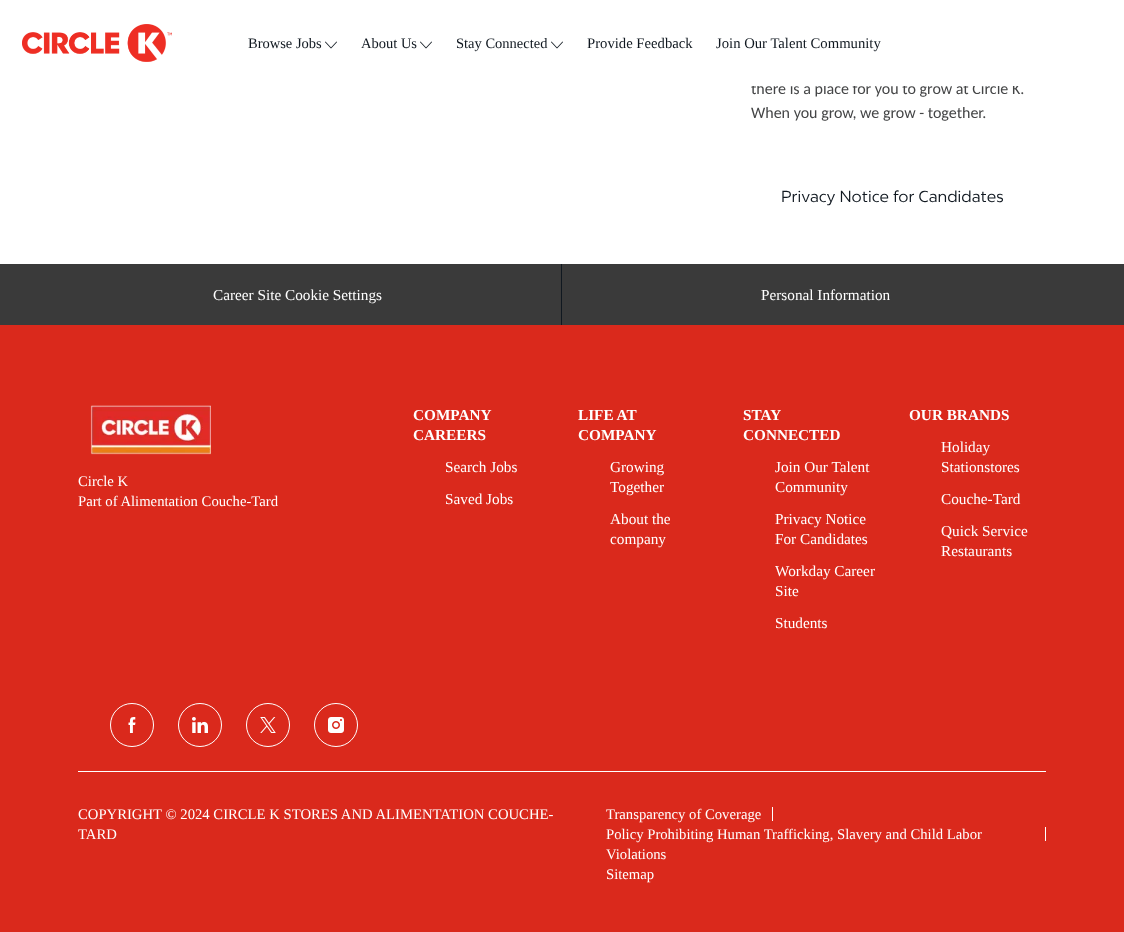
<svg xmlns="http://www.w3.org/2000/svg" width="1124" height="932">
<rect width="100%" height="100%" fill="#fff"/>
<text x="751" y="94" style="font-family:Carlito;font-size:16px;fill:#444546">there is a place for you to grow at Circle K.</text>
<rect x="752" y="82" width="269" height="4" fill="#fff"/>
<image x="22" y="24" width="150" height="38" href="media/1.png"/>
<text x="248" y="48" style="font-family:Liberation Serif;font-size:14.5px;fill:#101820">Browse Jobs</text>
<image x="325" y="41" width="12" height="8" href="media/2.png"/>
<text x="361" y="48" style="font-family:Liberation Serif;font-size:14.5px;fill:#101820">About Us</text>
<image x="420" y="41" width="12" height="8" href="media/2.png"/>
<text x="456" y="48" style="font-family:Liberation Serif;font-size:14.5px;fill:#101820">Stay Connected</text>
<image x="551" y="41" width="12" height="8" href="media/2.png"/>
<text x="587" y="48" style="font-family:Liberation Serif;font-size:14.7px;fill:#101820">Provide Feedback</text>
<text x="716" y="48" style="font-family:Liberation Serif;font-size:14.7px;fill:#101820">Join Our Talent Community</text>
<text x="751" y="118" style="font-family:Carlito;font-size:16px;fill:#444546">When you grow, we grow - together.</text>
<text x="781" y="202" style="font-family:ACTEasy;font-size:16px;fill:#101820">Privacy Notice for Candidates</text>
<rect y="264" width="1124" height="61" fill="#3a3a3a"/>
<rect x="561" y="264" width="1" height="61" fill="#101820"/>
<text x="213" y="300" style="font-family:Liberation Serif;font-size:15.25px;fill:#fff">Career Site Cookie Settings</text>
<text x="761" y="300" style="font-family:Liberation Serif;font-size:15.25px;fill:#fff">Personal Information</text>
<rect y="325" width="1124" height="607" fill="#da291c"/>
<image x="90" y="405" width="124" height="50" href="media/3.png"/>
<text x="78" y="486" style="font-family:Liberation Serif;font-size:14.7px;fill:#fff">Circle K</text>
<text x="78" y="506" style="font-family:Liberation Serif;font-size:14.7px;fill:#fff">Part of Alimentation Couche-Tard</text>
<text x="413" y="420" style="font-family:Liberation Serif;font-size:15.25px;font-weight:bold;fill:#fff">COMPANY</text>
<text x="413" y="440" style="font-family:Liberation Serif;font-size:15.25px;font-weight:bold;fill:#fff">CAREERS</text>
<text x="445" y="472" style="font-family:Liberation Serif;font-size:15.25px;fill:#fff">Search Jobs</text>
<text x="445" y="504" style="font-family:Liberation Serif;font-size:15.25px;fill:#fff">Saved Jobs</text>
<text x="578" y="420" style="font-family:Liberation Serif;font-size:15.25px;font-weight:bold;fill:#fff">LIFE AT</text>
<text x="578" y="440" style="font-family:Liberation Serif;font-size:15.25px;font-weight:bold;fill:#fff">COMPANY</text>
<text x="610" y="472" style="font-family:Liberation Serif;font-size:15.25px;fill:#fff">Growing</text>
<text x="610" y="492" style="font-family:Liberation Serif;font-size:15.25px;fill:#fff">Together</text>
<text x="610" y="524" style="font-family:Liberation Serif;font-size:15.25px;fill:#fff">About the</text>
<text x="610" y="544" style="font-family:Liberation Serif;font-size:15.25px;fill:#fff">company</text>
<text x="743" y="420" style="font-family:Liberation Serif;font-size:15.25px;font-weight:bold;fill:#fff">STAY</text>
<text x="743" y="440" style="font-family:Liberation Serif;font-size:15.25px;font-weight:bold;fill:#fff">CONNECTED</text>
<text x="775" y="472" style="font-family:Liberation Serif;font-size:15.25px;fill:#fff">Join Our Talent</text>
<text x="775" y="492" style="font-family:Liberation Serif;font-size:15.25px;fill:#fff">Community</text>
<text x="775" y="524" style="font-family:Liberation Serif;font-size:15.25px;fill:#fff">Privacy Notice</text>
<text x="775" y="544" style="font-family:Liberation Serif;font-size:15.25px;fill:#fff">For Candidates</text>
<text x="775" y="576" style="font-family:Liberation Serif;font-size:15.25px;fill:#fff">Workday Career</text>
<text x="775" y="596" style="font-family:Liberation Serif;font-size:15.25px;fill:#fff">Site</text>
<text x="775" y="628" style="font-family:Liberation Serif;font-size:15.25px;fill:#fff">Students</text>
<text x="909" y="420" style="font-family:Liberation Serif;font-size:15.25px;font-weight:bold;fill:#fff">OUR BRANDS</text>
<text x="941" y="452" style="font-family:Liberation Serif;font-size:15.25px;fill:#fff">Holiday</text>
<text x="941" y="472" style="font-family:Liberation Serif;font-size:15.25px;fill:#fff">Stationstores</text>
<text x="941" y="504" style="font-family:Liberation Serif;font-size:15.25px;fill:#fff">Couche-Tard</text>
<text x="941" y="536" style="font-family:Liberation Serif;font-size:15.25px;fill:#fff">Quick Service</text>
<text x="941" y="556" style="font-family:Liberation Serif;font-size:15.25px;fill:#fff">Restaurants</text>
<circle cx="132" cy="725" r="21.5" fill="none" stroke="#fff"/>
<image x="128" y="717" width="8" height="16" href="media/4.png"/>
<circle cx="200" cy="725" r="21.5" fill="none" stroke="#fff"/>
<image x="192" y="717" width="16" height="16" href="media/5.png"/>
<circle cx="268" cy="725" r="21.5" fill="none" stroke="#fff"/>
<image x="260" y="717" width="16" height="16" href="media/6.png"/>
<circle cx="336" cy="725" r="21.5" fill="none" stroke="#fff"/>
<image x="328" y="717" width="16" height="16" href="media/7.png"/>
<rect x="78" y="771" width="968" height="1" fill="#fff"/>
<text x="78" y="819" style="font-family:Liberation Serif;font-size:14.7px;fill:#fff">COPYRIGHT © 2024 CIRCLE K STORES AND ALIMENTATION COUCHE-</text>
<text x="78" y="839" style="font-family:Liberation Serif;font-size:14.7px;fill:#fff">TARD</text>
<text x="606" y="819" style="font-family:Liberation Serif;font-size:14.7px;fill:#fff">Transparency of Coverage</text>
<rect x="772" y="807" width="1" height="14" fill="#fff"/>
<text x="606" y="839" style="font-family:Liberation Serif;font-size:14.7px;fill:#fff">Policy Prohibiting Human Trafficking, Slavery and Child Labor</text>
<rect x="1045" y="827" width="1" height="14" fill="#fff"/>
<text x="606" y="859" style="font-family:Liberation Serif;font-size:14.7px;fill:#fff">Violations</text>
<text x="606" y="879" style="font-family:Liberation Serif;font-size:14.7px;fill:#fff">Sitemap</text>
</svg>
